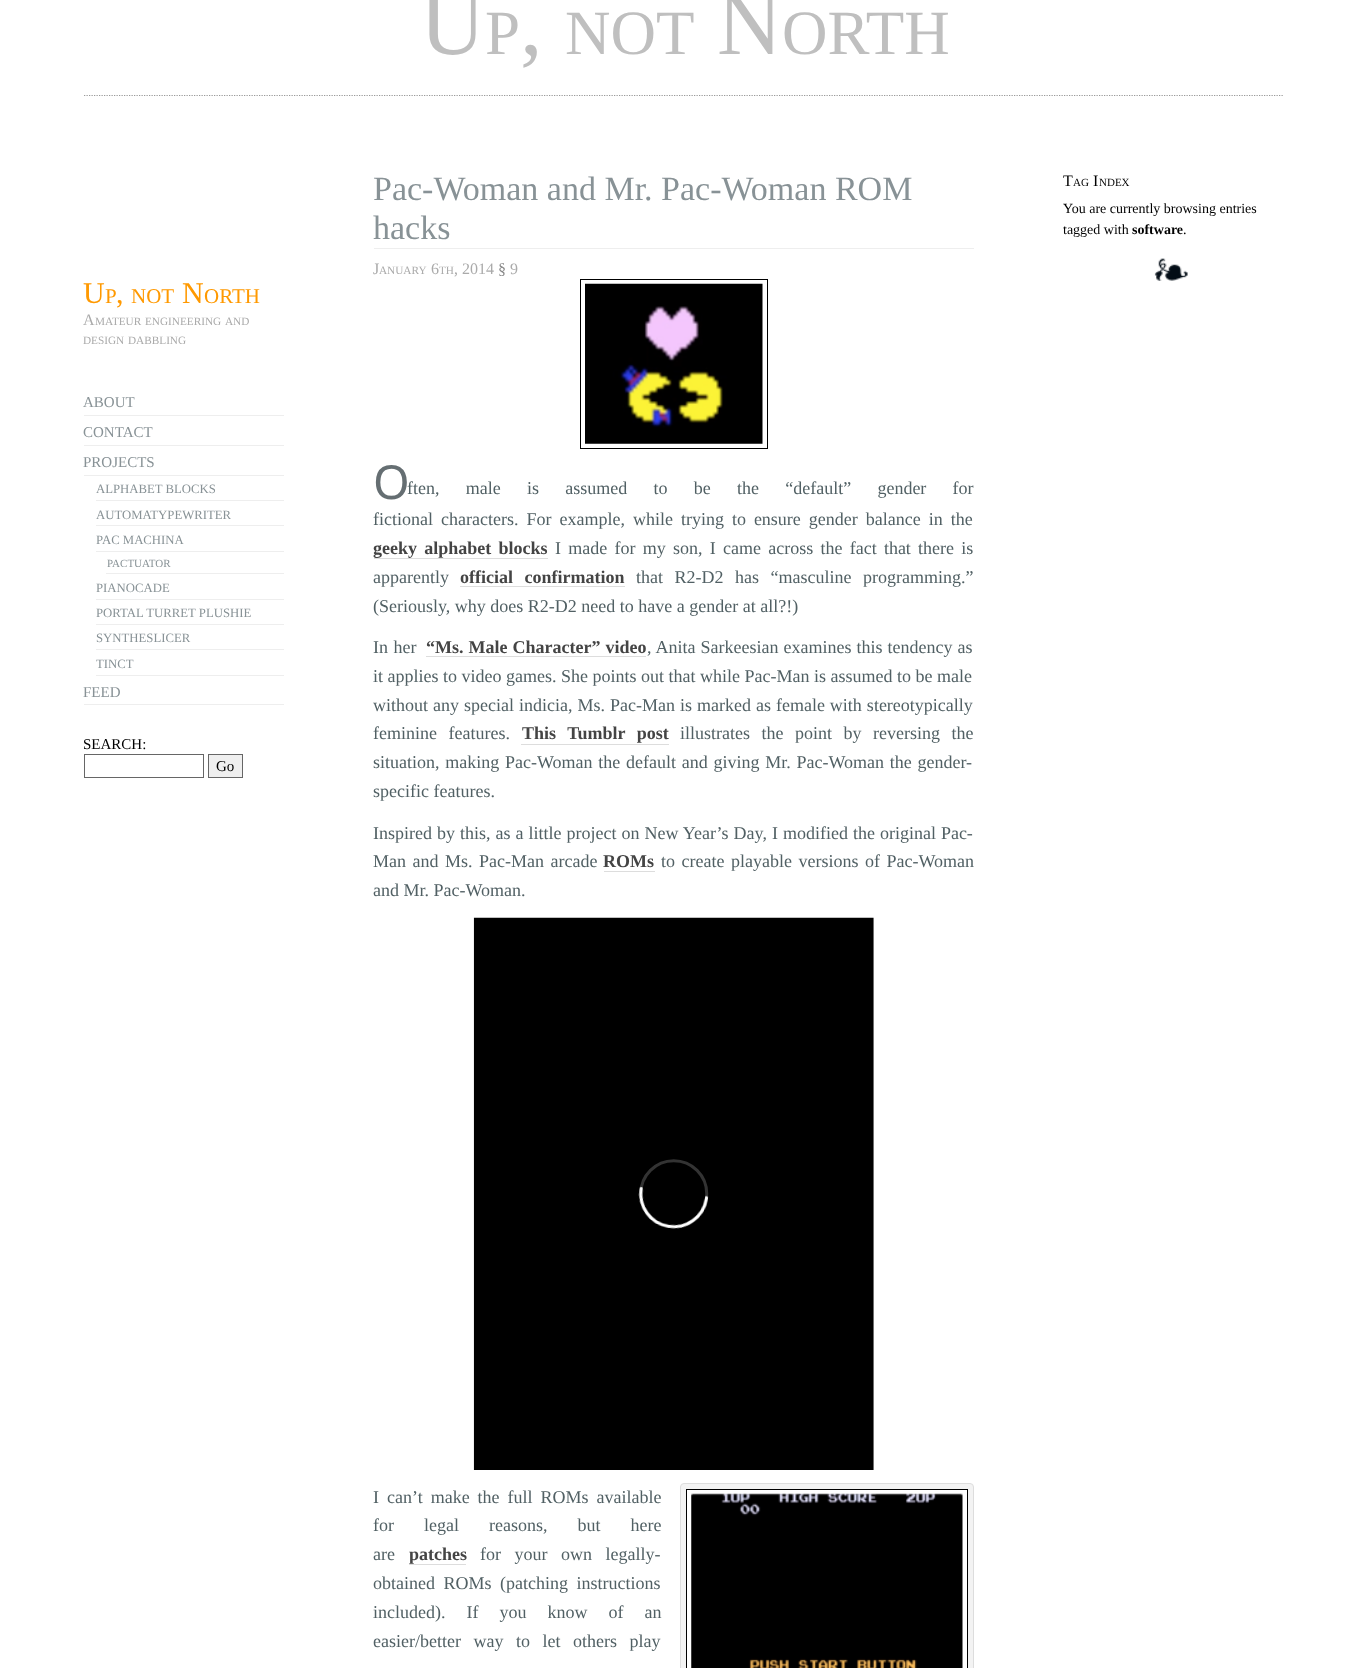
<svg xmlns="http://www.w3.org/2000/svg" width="1366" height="1668">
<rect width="100%" height="100%" fill="#fff"/>
<path d="M84 95.5h1200" fill="none" stroke="#999" stroke-width="1.2" stroke-dasharray="1.25 1.25"/>
<text x="420" y="54" style="font-family:Liberation Serif;font-size:90px;fill:#bfbfbf">U</text>
<text x="485" y="54" style="font-family:Liberation Serif;font-size:63px;fill:#bfbfbf">P</text>
<text x="520" y="54" style="font-family:Liberation Serif;font-size:90px;fill:#bfbfbf">,</text>
<text x="565" y="54" style="font-family:Liberation Serif;font-size:63px;fill:#bfbfbf">NOT</text>
<text x="717" y="54" style="font-family:Liberation Serif;font-size:90px;fill:#bfbfbf">N</text>
<text x="782" y="54" style="font-family:Liberation Serif;font-size:63px;fill:#bfbfbf">ORTH</text>
<text x="83" y="303" style="font-family:Liberation Serif;font-size:30px;fill:#f90">U</text>
<text x="105" y="303" style="font-family:Liberation Serif;font-size:21px;fill:#f90">P</text>
<text x="116" y="303" style="font-family:Liberation Serif;font-size:30px;fill:#f90">,</text>
<text x="131" y="303" style="font-family:Liberation Serif;font-size:21px;fill:#f90">NOT</text>
<text x="182" y="303" style="font-family:Liberation Serif;font-size:30px;fill:#f90">N</text>
<text x="204" y="303" style="font-family:Liberation Serif;font-size:21px;fill:#f90">ORTH</text>
<text x="83" y="325" style="font-family:Liberation Serif;font-size:16px;fill:#aaa">A</text>
<text x="95" y="325" style="font-family:Liberation Serif;font-size:11.25px;fill:#aaa">MATEUR</text>
<text x="145" y="325" style="font-family:Liberation Serif;font-size:11.25px;fill:#aaa">ENGINEERING</text>
<text x="225" y="325" style="font-family:Liberation Serif;font-size:11.25px;fill:#aaa">AND</text>
<text x="83" y="344" style="font-family:Liberation Serif;font-size:11.25px;fill:#aaa">DESIGN</text>
<text x="128" y="344" style="font-family:Liberation Serif;font-size:11.25px;fill:#aaa">DABBLING</text>
<rect x="84" y="415" width="200" height="1" fill="#eee"/>
<text x="83" y="407" style="font-family:Liberation Serif;font-size:15px;fill:#889296">ABOUT</text>
<rect x="84" y="445" width="200" height="1" fill="#eee"/>
<text x="83" y="437" style="font-family:Liberation Serif;font-size:15px;fill:#889296">CONTACT</text>
<rect x="84" y="475" width="200" height="1" fill="#eee"/>
<text x="83" y="467" style="font-family:Liberation Serif;font-size:15px;fill:#889296">PROJECTS</text>
<rect x="96" y="500" width="188" height="1" fill="#eee"/>
<text x="96" y="493" style="font-family:Liberation Serif;font-size:12.75px;fill:#889296">ALPHABET BLOCKS</text>
<rect x="96" y="525" width="188" height="1" fill="#eee"/>
<text x="96" y="519" style="font-family:Liberation Serif;font-size:12.75px;fill:#889296">AUTOMATYPEWRITER</text>
<rect x="96" y="551" width="188" height="1" fill="#eee"/>
<text x="96" y="544" style="font-family:Liberation Serif;font-size:12.75px;fill:#889296">PAC MACHINA</text>
<rect x="106" y="573" width="178" height="1" fill="#eee"/>
<text x="107" y="567" style="font-family:Liberation Serif;font-size:11px;fill:#889296">PACTUATOR</text>
<rect x="96" y="599" width="188" height="1" fill="#eee"/>
<text x="96" y="592" style="font-family:Liberation Serif;font-size:12.75px;fill:#889296">PIANOCADE</text>
<rect x="96" y="624" width="188" height="1" fill="#eee"/>
<text x="96" y="617" style="font-family:Liberation Serif;font-size:12.75px;fill:#889296">PORTAL TURRET PLUSHIE</text>
<rect x="96" y="649" width="188" height="1" fill="#eee"/>
<text x="96" y="642" style="font-family:Liberation Serif;font-size:12.75px;fill:#889296">SYNTHESLICER</text>
<rect x="96" y="675" width="188" height="1" fill="#eee"/>
<text x="96" y="668" style="font-family:Liberation Serif;font-size:12.75px;fill:#889296">TINCT</text>
<rect x="84" y="704" width="200" height="1" fill="#eee"/>
<text x="83" y="697" style="font-family:Liberation Serif;font-size:15px;fill:#889296">FEED</text>
<text x="83" y="749" style="font-family:Liberation Serif;font-size:15px;fill:#000">SEARCH:</text>
<rect x="84.5" y="754.5" width="119" height="23" fill="none" stroke="#666"/>
<rect x="208.5" y="754.5" width="34" height="23" fill="#efefef" stroke="#666"/>
<text x="216" y="771" style="font-family:Liberation Serif;font-size:15px;fill:#000">Go</text>
<rect x="374" y="248" width="600" height="1" fill="#eee"/>
<text x="373" y="200" style="font-family:Liberation Serif;font-size:34px;fill:#889296">Pac-Woman and Mr. Pac-Woman ROM</text>
<text x="373" y="239" style="font-family:Liberation Serif;font-size:34px;fill:#889296">hacks</text>
<text x="373" y="274" style="font-family:Liberation Serif;font-size:16px;fill:#aaa">J</text>
<text x="379" y="274" style="font-family:Liberation Serif;font-size:11.25px;fill:#aaa">ANUARY</text>
<text x="431" y="274" style="font-family:Liberation Serif;font-size:16px;fill:#aaa">6</text>
<text x="439" y="274" style="font-family:Liberation Serif;font-size:11.25px;fill:#aaa">TH</text>
<text x="454" y="274" style="font-family:Liberation Serif;font-size:16px;fill:#aaa">, 2014</text>
<text x="498" y="274" style="font-family:Liberation Serif;font-size:16px;fill:#888">§</text>
<text x="510" y="274" style="font-family:Liberation Serif;font-size:16px;fill:#aaa">9</text>
<rect x="580.5" y="279.5" width="187" height="169" fill="none" stroke="#000"/>
<image x="585" y="283" width="178" height="161" href="media/1.png"/>
<text x="373" y="499" style="font-family:Noto Sans;font-size:47px;fill:#656e72">O</text>
<text x="407" y="494" word-spacing="21.75" style="font-family:Liberation Serif;font-size:18px;fill:#516064">ften, male is assumed to be the “default” gender for</text>
<text x="373" y="525" word-spacing="3.5" style="font-family:Liberation Serif;font-size:18px;fill:#516064">fictional characters. For example, while trying to ensure gender balance in the</text>
<text x="373" y="554" word-spacing="2.75" style="font-family:Liberation Serif;font-size:18px;font-weight:bold;fill:#444">geeky alphabet blocks</text>
<rect x="374" y="558" width="174" height="1" fill="#ddd"/>
<text x="555" y="554" word-spacing="2.75" style="font-family:Liberation Serif;font-size:18px;fill:#516064">I made for my son, I came across the fact that there is</text>
<text x="373" y="583" style="font-family:Liberation Serif;font-size:18px;fill:#516064">apparently</text>
<text x="460" y="583" word-spacing="7" style="font-family:Liberation Serif;font-size:18px;font-weight:bold;fill:#444">official confirmation</text>
<rect x="460" y="586" width="165" height="1" fill="#ddd"/>
<text x="636" y="583" word-spacing="7" style="font-family:Liberation Serif;font-size:18px;fill:#516064">that R2-D2 has “masculine programming.”</text>
<text x="373" y="612" style="font-family:Liberation Serif;font-size:18px;fill:#516064">(Seriously, why does R2-D2 need to have a gender at all?!)</text>
<text x="373" y="653" word-spacing="1" style="font-family:Liberation Serif;font-size:18px;fill:#516064">In her</text>
<text x="426" y="653" word-spacing="0.5" style="font-family:Liberation Serif;font-size:18px;font-weight:bold;fill:#444">“Ms. Male Character” video</text>
<rect x="426" y="656" width="220" height="1" fill="#ddd"/>
<text x="647" y="653" word-spacing="0.5" style="font-family:Liberation Serif;font-size:18px;fill:#516064">, Anita Sarkeesian examines this tendency as</text>
<text x="373" y="682" style="font-family:Liberation Serif;font-size:18px;fill:#516064">it applies to video games. She points out that while Pac-Man is assumed to be male</text>
<text x="373" y="711" word-spacing="0.5" style="font-family:Liberation Serif;font-size:18px;fill:#516064">without any special indicia, Ms. Pac-Man is marked as female with stereotypically</text>
<text x="373" y="739" word-spacing="7" style="font-family:Liberation Serif;font-size:18px;fill:#516064">feminine features.</text>
<text x="522" y="739" word-spacing="7" style="font-family:Liberation Serif;font-size:18px;font-weight:bold;fill:#444">This Tumblr post</text>
<rect x="521" y="744" width="148" height="1" fill="#ddd"/>
<text x="680" y="739" word-spacing="7" style="font-family:Liberation Serif;font-size:18px;fill:#516064">illustrates the point by reversing the</text>
<text x="373" y="768" word-spacing="1.25" style="font-family:Liberation Serif;font-size:18px;fill:#516064">situation, making Pac-Woman the default and giving Mr. Pac-Woman the gender-</text>
<text x="373" y="797" style="font-family:Liberation Serif;font-size:18px;fill:#516064">specific features.</text>
<text x="373" y="839" word-spacing="0.5" style="font-family:Liberation Serif;font-size:18px;fill:#516064">Inspired by this, as a little project on New Year’s Day, I modified the original Pac-</text>
<text x="373" y="867" word-spacing="2" style="font-family:Liberation Serif;font-size:18px;fill:#516064">Man and Ms. Pac-Man arcade</text>
<text x="603" y="867" style="font-family:Liberation Serif;font-size:18px;font-weight:bold;fill:#444">ROMs</text>
<rect x="604" y="871" width="51" height="1" fill="#ddd"/>
<text x="661" y="867" word-spacing="2" style="font-family:Liberation Serif;font-size:18px;fill:#516064">to create playable versions of Pac-Woman</text>
<text x="373" y="896" style="font-family:Liberation Serif;font-size:18px;fill:#516064">and Mr. Pac-Woman.</text>
<image x="473" y="917" width="401" height="553" href="media/2.png"/>
<text x="373" y="1503" word-spacing="3.5" style="font-family:Liberation Serif;font-size:18px;fill:#516064">I can’t make the full ROMs available</text>
<text x="373" y="1531" word-spacing="25.5" style="font-family:Liberation Serif;font-size:18px;fill:#516064">for legal reasons, but here</text>
<text x="373" y="1560" style="font-family:Liberation Serif;font-size:18px;fill:#516064">are</text>
<text x="409" y="1560" style="font-family:Liberation Serif;font-size:18px;font-weight:bold;fill:#444">patches</text>
<rect x="409" y="1564" width="57" height="1" fill="#ddd"/>
<text x="480" y="1560" word-spacing="9" style="font-family:Liberation Serif;font-size:18px;fill:#516064">for your own legally-</text>
<text x="373" y="1589" word-spacing="4" style="font-family:Liberation Serif;font-size:18px;fill:#516064">obtained ROMs (patching instructions</text>
<text x="373" y="1618" word-spacing="16.5" style="font-family:Liberation Serif;font-size:18px;fill:#516064">included). If you know of an</text>
<text x="373" y="1647" word-spacing="8" style="font-family:Liberation Serif;font-size:18px;fill:#516064">easier/better way to let others play</text>
<rect x="680.5" y="1483.5" width="293" height="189" rx="3.5" fill="#f3f3f3" stroke="#ddd"/>
<rect x="686.5" y="1489.5" width="281" height="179" fill="#fff" stroke="#000"/>
<image x="691" y="1493" width="272" height="175" href="media/3.png"/>
<text x="1063" y="186" style="font-family:Liberation Serif;font-size:16px;fill:#000">T</text>
<text x="1073" y="186" style="font-family:Liberation Serif;font-size:11px;fill:#000">AG</text>
<text x="1093" y="186" style="font-family:Liberation Serif;font-size:16px;fill:#000">I</text>
<text x="1099" y="186" style="font-family:Liberation Serif;font-size:11px;fill:#000">NDEX</text>
<text x="1063" y="213" style="font-family:Liberation Serif;font-size:14px;fill:#000">You are currently browsing entries</text>
<text x="1063" y="234" style="font-family:Liberation Serif;font-size:14px;fill:#000">tagged with</text>
<text x="1132" y="234" style="font-family:Liberation Serif;font-size:14px;font-weight:bold;fill:#000">software</text>
<text x="1183" y="234" style="font-family:Liberation Serif;font-size:14px;fill:#000">.</text>
<image x="1154" y="258" width="34" height="23" href="media/4.png"/>
</svg>
